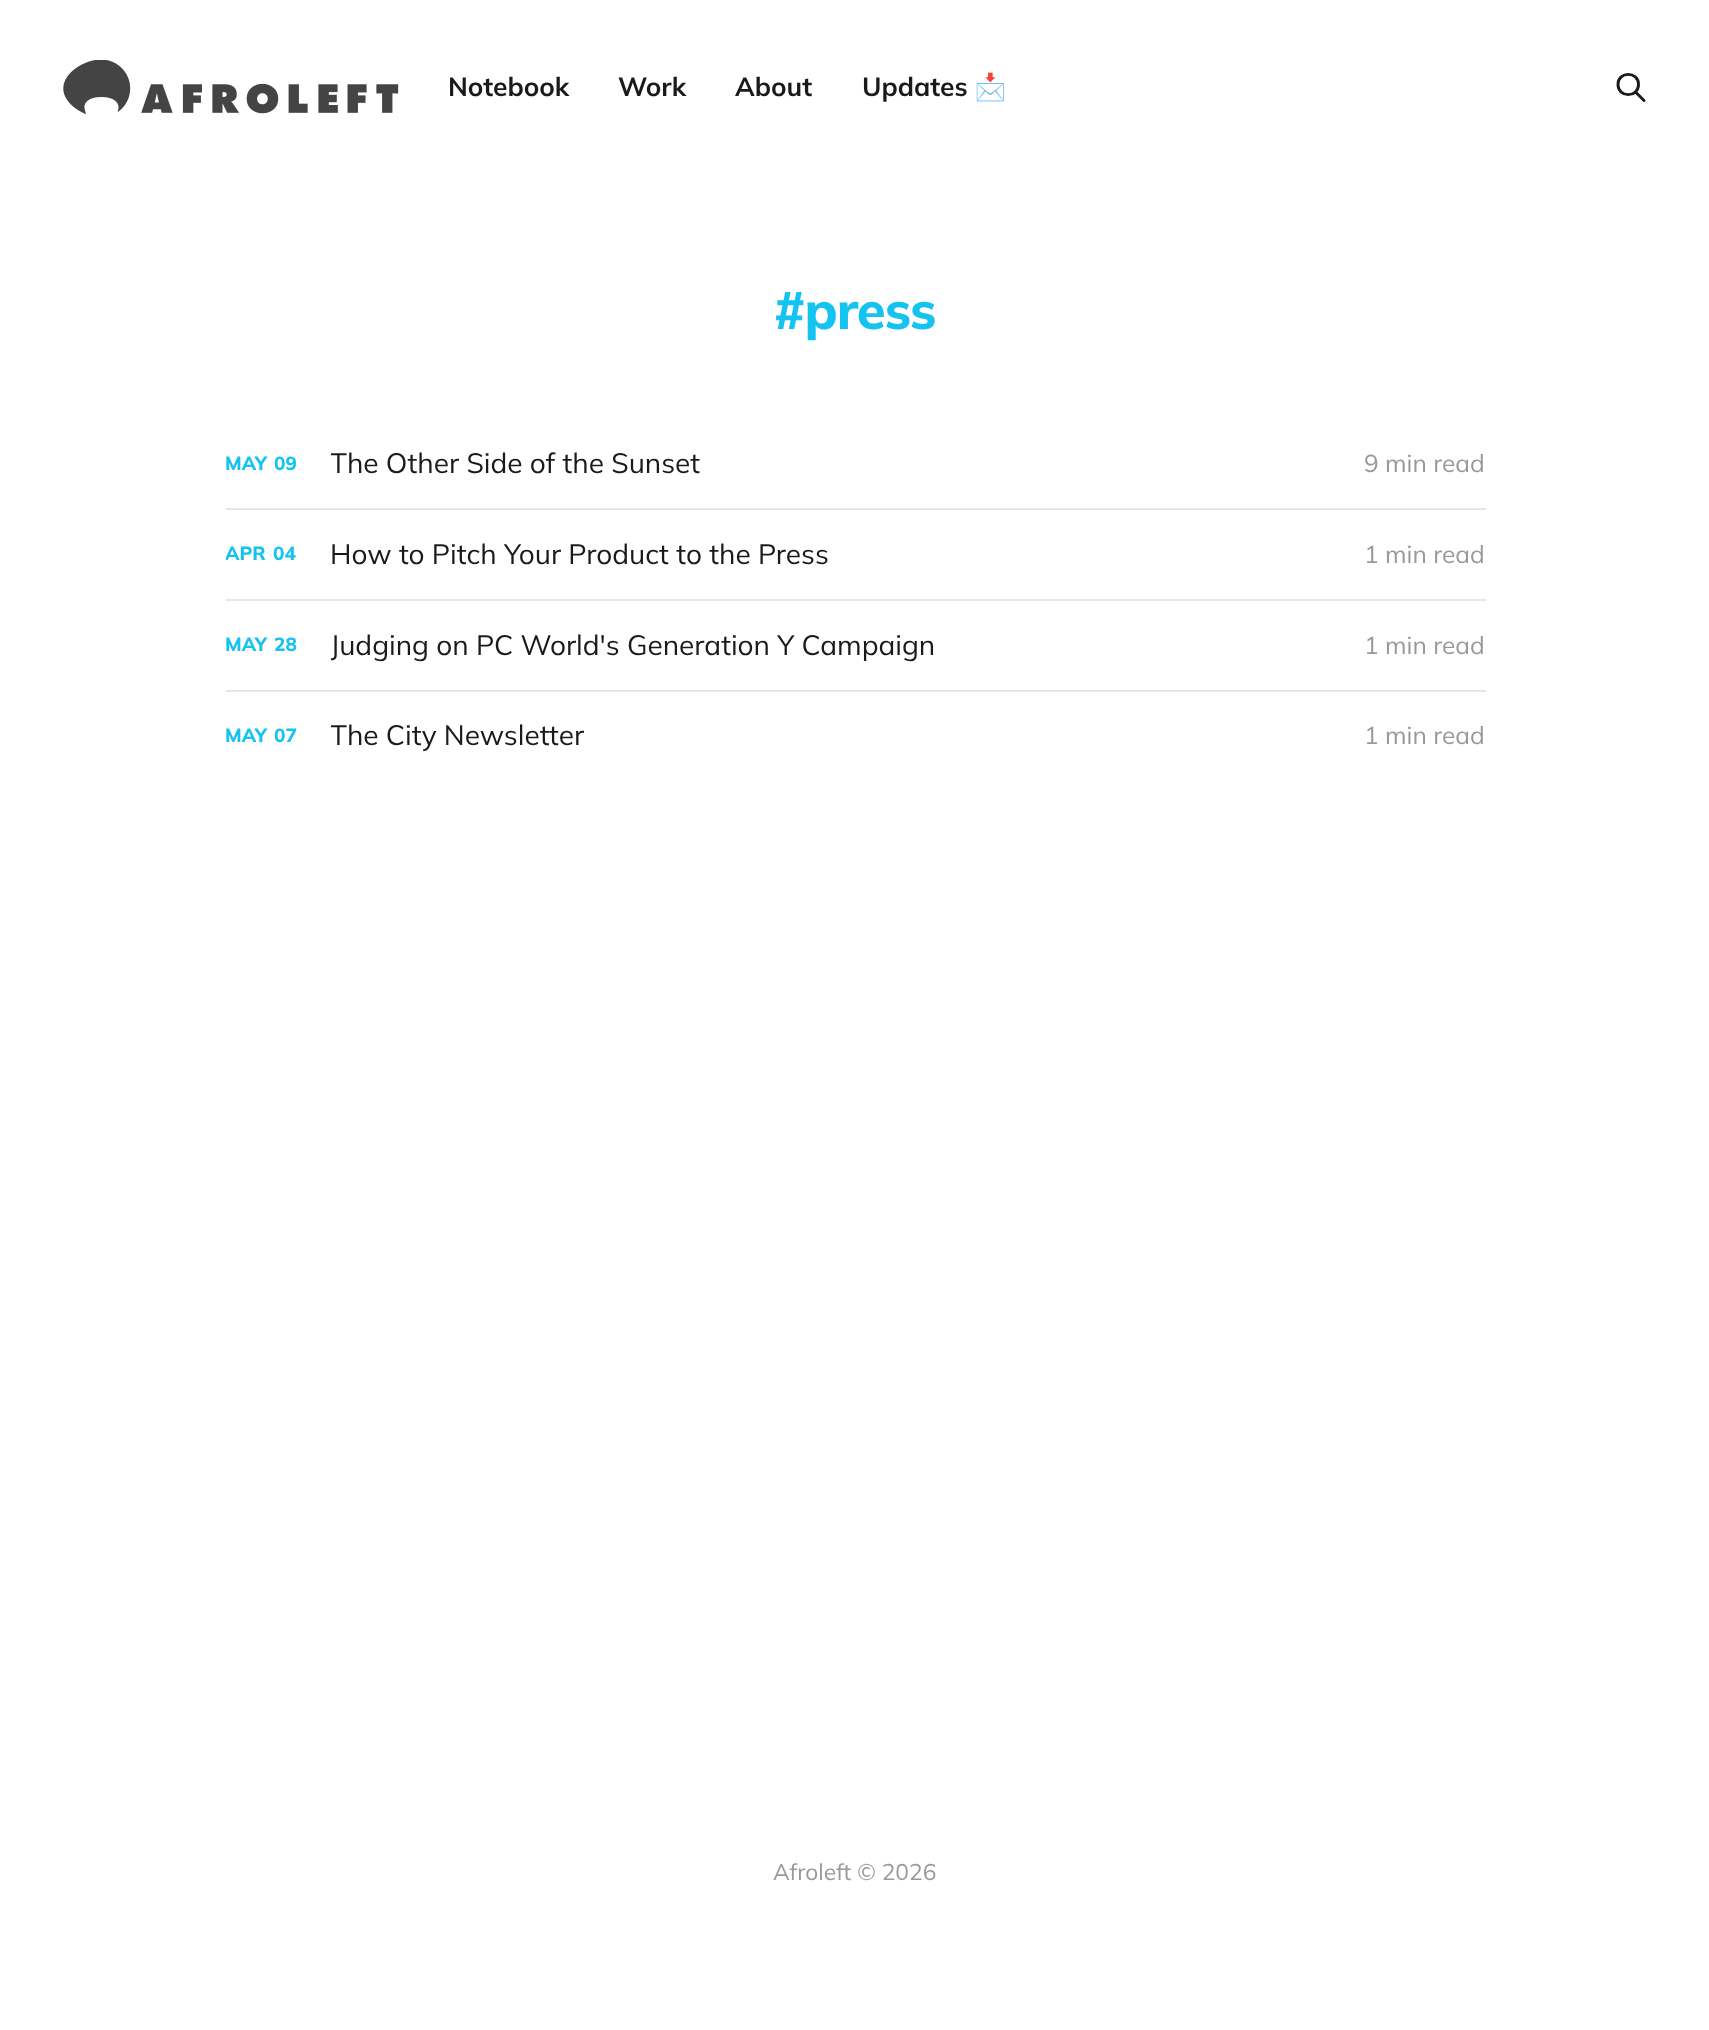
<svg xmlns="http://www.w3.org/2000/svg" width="1709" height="2030">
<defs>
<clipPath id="clip1"><rect x="331" y="446" width="1034" height="35"/></clipPath>
<clipPath id="clip2"><rect x="226" y="509" width="1260" height="90"/></clipPath>
<clipPath id="clip3"><rect x="331" y="627" width="1034" height="36"/></clipPath>
<clipPath id="clip4"><rect x="331" y="718" width="1034" height="36"/></clipPath>
</defs>
<rect width="100%" height="100%" fill="#fff"/>
<image x="63" y="60" width="336" height="55" href="media/1.png"/>
<text x="448" y="96" style="font-family:Mulish;font-size:26.25px;font-weight:200;fill:#1a1a1a">Notebook</text>
<text x="618" y="96" style="font-family:Mulish;font-size:26.25px;font-weight:200;fill:#1a1a1a">Work</text>
<text x="735" y="96" style="font-family:Mulish;font-size:26.25px;font-weight:200;fill:#1a1a1a">About</text>
<text x="862" y="96" style="font-family:Mulish;font-size:26.25px;font-weight:200;fill:#1a1a1a">Updates</text>
<text x="974" y="96" style="font-family:Noto Color Emoji;font-size:26.25px;font-weight:bold;fill:#1a1a1a">📩</text>
<path d="M1644 100.5l-8.5-8.5m3-7.5c0 13.5-20.5 13.5-20.5 0c0-13.5 20.5-13.5 20.5 0z" fill="none" stroke="#1a1a1a" stroke-width="2.9" stroke-linecap="round" stroke-linejoin="round"/>
<text x="774" y="329" style="font-family:'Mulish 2';font-size:52.5px;font-weight:200;letter-spacing:-1px;fill:#14c3ef">#press</text>
<text x="225" y="470" style="font-family:'Mulish 2';font-size:19px;font-weight:200;fill:#14c3ef">MAY</text>
<text x="274" y="470" style="font-family:'Mulish 2';font-size:19px;font-weight:200;fill:#14c3ef">09</text>
<g clip-path="url(#clip1)">
<text x="330" y="473" style="font-family:'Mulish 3';font-size:28px;font-weight:200;fill:#1a1a1a">The Other Side of the Sunset</text>
</g>
<text x="1364" y="472" style="font-family:'Mulish 3';font-size:24.5px;font-weight:200;fill:#999">9 min read</text>
<rect x="226" y="508" width="1260" height="2" fill="#e6e6e6"/>
<g clip-path="url(#clip2)">
<text x="225" y="560" style="font-family:'Mulish 2';font-size:19px;font-weight:200;fill:#14c3ef">APR</text>
</g>
<text x="273" y="560" style="font-family:'Mulish 2';font-size:19px;font-weight:200;fill:#14c3ef">04</text>
<text x="330" y="564" style="font-family:'Mulish 3';font-size:28px;font-weight:200;fill:#1a1a1a">How to Pitch Your Product to the Press</text>
<text x="1364" y="563" style="font-family:'Mulish 3';font-size:24.5px;font-weight:200;fill:#999">1 min read</text>
<rect x="226" y="599" width="1260" height="2" fill="#e6e6e6"/>
<text x="225" y="651" style="font-family:'Mulish 2';font-size:19px;font-weight:200;fill:#14c3ef">MAY</text>
<text x="274" y="651" style="font-family:'Mulish 2';font-size:19px;font-weight:200;fill:#14c3ef">28</text>
<g clip-path="url(#clip3)">
<text x="330" y="655" style="font-family:'Mulish 3';font-size:28px;font-weight:200;fill:#1a1a1a">Judging on PC World's Generation Y Campaign</text>
</g>
<text x="1364" y="654" style="font-family:'Mulish 3';font-size:24.5px;font-weight:200;fill:#999">1 min read</text>
<rect x="226" y="690" width="1260" height="2" fill="#e6e6e6"/>
<text x="225" y="742" style="font-family:'Mulish 2';font-size:19px;font-weight:200;fill:#14c3ef">MAY</text>
<text x="274" y="742" style="font-family:'Mulish 2';font-size:19px;font-weight:200;fill:#14c3ef">07</text>
<g clip-path="url(#clip4)">
<text x="330" y="745" style="font-family:'Mulish 3';font-size:28px;font-weight:200;fill:#1a1a1a">The City Newsletter</text>
</g>
<text x="1364" y="744" style="font-family:'Mulish 3';font-size:24.5px;font-weight:200;fill:#999">1 min read</text>
<text x="773" y="1880" style="font-family:'Mulish 3';font-size:22.75px;font-weight:200;fill:#999">Afroleft © 2026</text>
</svg>
